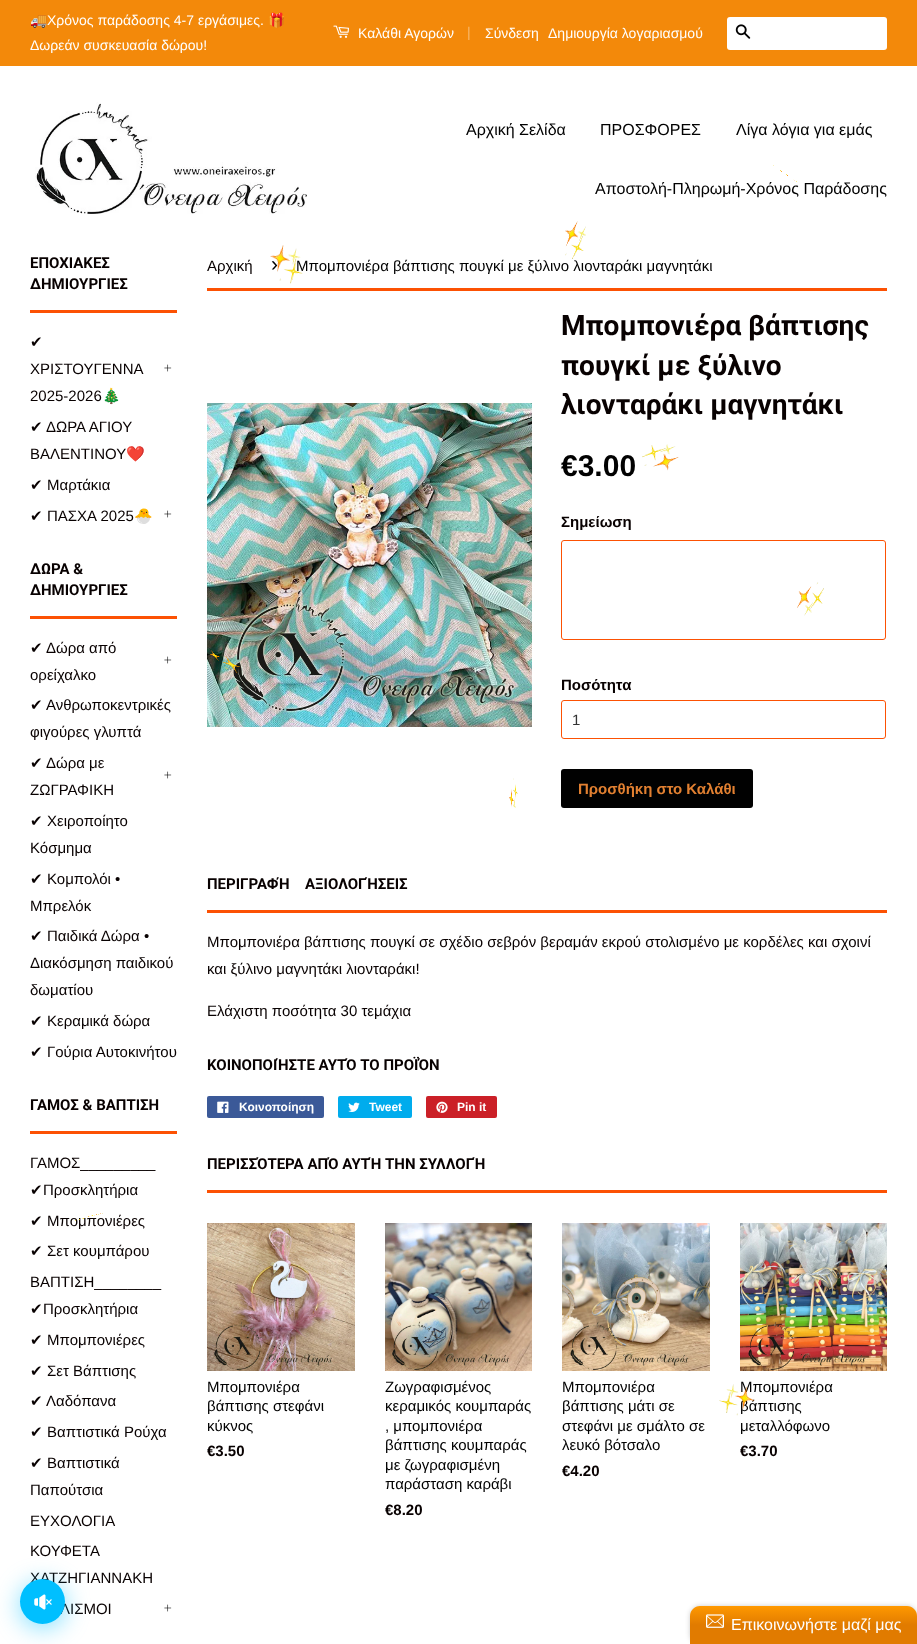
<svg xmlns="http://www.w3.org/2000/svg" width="917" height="1644">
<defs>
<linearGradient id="g1" gradientUnits="userSpaceOnUse" x1="804" y1="1606" x2="804" y2="1644"><stop offset="0" stop-color="#f90"/><stop offset="0.5" stop-color="#e17b00"/></linearGradient>
</defs>
<rect width="100%" height="100%" fill="#fff"/>
<rect width="917" height="66" fill="#f3890a"/>
<text x="30" y="25" style="font-family:Noto Color Emoji;font-size:14px;fill:#fff">🚚</text>
<text x="47" y="25" style="font-family:Liberation Sans;font-size:14px;fill:#fff">Χρόνος παράδοσης 4-7 εργάσιμες.</text>
<text x="268" y="25" style="font-family:Noto Color Emoji;font-size:14px;fill:#fff">🎁</text>
<text x="30" y="50" style="font-family:Liberation Sans;font-size:14px;fill:#fff">Δωρεάν συσκευασία δώρου!</text>
<image x="333" y="25" width="16" height="13" href="media/1.png"/>
<text x="358" y="38" style="font-family:Liberation Sans;font-size:14px;fill:#fff">Καλάθι Αγορών</text>
<text x="467" y="37" style="font-family:Liberation Sans;font-size:14px;fill:#f8b86c">|</text>
<text x="485" y="38" style="font-family:Liberation Sans;font-size:14px;fill:#fff">Σύνδεση</text>
<text x="548" y="38" style="font-family:Liberation Sans;font-size:14px;fill:#fff">Δημιουργία λογαριασμού</text>
<rect x="727" y="17" width="160" height="33" rx="3" fill="#fff"/>
<image x="735" y="24" width="16" height="15" href="media/2.png"/>
<image x="35" y="102" width="272" height="112" href="media/3.png"/>
<text x="466" y="135" style="font-family:Liberation Sans;font-size:16px;fill:#010101">Αρχική Σελίδα</text>
<text x="600" y="135" style="font-family:Liberation Sans;font-size:16px;fill:#010101">ΠΡΟΣΦΟΡΕΣ</text>
<text x="736" y="135" style="font-family:Liberation Sans;font-size:16px;fill:#010101">Λίγα λόγια για εμάς</text>
<text x="595" y="194" style="font-family:Liberation Sans;font-size:16px;fill:#010101">Αποστολή-Πληρωμή-Χρόνος Παράδοσης</text>
<image x="773" y="165" width="24" height="17" href="media/4.png"/>
<image x="565" y="221" width="21" height="38" href="media/5.png"/>
<text x="271" y="271" style="font-family:Liberation Sans;font-size:21px;fill:#010101">›</text>
<text x="296" y="271" style="font-family:Liberation Sans;font-size:15px;fill:#010101">Μπομπονιέρα βάπτισης πουγκί με ξύλινο λιονταράκι μαγνητάκι</text>
<image x="270" y="245" width="33" height="39" href="media/6.png"/>
<image x="642" y="444" width="37" height="27" href="media/7.png"/>
<rect x="561.5" y="540.5" width="324" height="99" rx="2.5" fill="none" stroke="#fc5103"/>
<image x="797" y="582" width="27" height="34" href="media/8.png"/>
<image x="207" y="403" width="325" height="324" href="media/14.png"/>
<image x="208" y="650" width="33" height="24" href="media/9.png"/>
<image x="509" y="778" width="9" height="30" href="media/10.png"/>
<text x="47" y="1226" style="font-family:Liberation Sans;font-size:15px;fill:#080101">Μπομπονιέρες</text>
<image x="75" y="1213" width="28" height="8" href="media/11.png"/>
<text x="740" y="1392" style="font-family:Liberation Sans;font-size:15px;fill:#010101">Μπομπονιέρα</text>
<text x="740" y="1411" style="font-family:Liberation Sans;font-size:15px;fill:#010101">βάπτισης</text>
<image x="719" y="1384" width="36" height="32" href="media/12.png"/>
<rect x="30" y="310" width="147" height="3" fill="#fc5103"/>
<text x="30" y="268" style="font-family:Roboto;font-size:15px;font-weight:bold;fill:#080101">ΕΠΟΧΙΑΚΕΣ</text>
<text x="30" y="289" style="font-family:Roboto;font-size:15px;font-weight:bold;fill:#080101">ΔΗΜΙΟΥΡΓΙΕΣ</text>
<text x="30" y="347" style="font-family:DejaVu Sans;font-size:15px;fill:#080101">✔</text>
<text x="30" y="374" style="font-family:Liberation Sans;font-size:15px;fill:#080101">ΧΡΙΣΤΟΥΓΕΝΝΑ</text>
<text x="30" y="401" style="font-family:Liberation Sans;font-size:15px;fill:#080101">2025-2026</text>
<text x="102" y="401" style="font-family:Noto Color Emoji;font-size:15px;fill:#080101">🎄</text>
<image x="164" y="364" width="8" height="8" href="media/13.png"/>
<text x="30" y="432" style="font-family:DejaVu Sans;font-size:15px;fill:#080101">✔</text>
<text x="46" y="432" style="font-family:Liberation Sans;font-size:15px;fill:#080101">ΔΩΡΑ ΑΓΙΟΥ</text>
<text x="30" y="459" style="font-family:Liberation Sans;font-size:15px;fill:#080101">ΒΑΛΕΝΤΙΝΟΥ</text>
<text x="126" y="459" style="font-family:Noto Color Emoji;font-size:15px;fill:#080101">❤️</text>
<text x="30" y="490" style="font-family:DejaVu Sans;font-size:15px;fill:#080101">✔</text>
<text x="47" y="490" style="font-family:Liberation Sans;font-size:15px;fill:#080101">Μαρτάκια</text>
<text x="30" y="521" style="font-family:DejaVu Sans;font-size:15px;fill:#080101">✔</text>
<text x="47" y="521" style="font-family:Liberation Sans;font-size:15px;fill:#080101">ΠΑΣΧΑ 2025</text>
<text x="134" y="521" style="font-family:Noto Color Emoji;font-size:15px;fill:#080101">🐣</text>
<image x="164" y="510" width="8" height="8" href="media/13.png"/>
<rect x="30" y="616" width="147" height="3" fill="#fc5103"/>
<text x="30" y="574" style="font-family:Roboto;font-size:15px;font-weight:bold;fill:#080101">ΔΩΡΑ &amp;</text>
<text x="30" y="595" style="font-family:Roboto;font-size:15px;font-weight:bold;fill:#080101">ΔΗΜΙΟΥΡΓΙΕΣ</text>
<text x="30" y="653" style="font-family:DejaVu Sans;font-size:15px;fill:#080101">✔</text>
<text x="46" y="653" style="font-family:Liberation Sans;font-size:15px;fill:#080101">Δώρα από</text>
<text x="30" y="680" style="font-family:Liberation Sans;font-size:15px;fill:#080101">ορείχαλκο</text>
<image x="164" y="656" width="8" height="8" href="media/13.png"/>
<text x="30" y="710" style="font-family:DejaVu Sans;font-size:15px;fill:#080101">✔</text>
<text x="46" y="710" style="font-family:Liberation Sans;font-size:15px;fill:#080101">Ανθρωποκεντρικές</text>
<text x="30" y="737" style="font-family:Liberation Sans;font-size:15px;fill:#080101">φιγούρες γλυπτά</text>
<text x="30" y="768" style="font-family:DejaVu Sans;font-size:15px;fill:#080101">✔</text>
<text x="46" y="768" style="font-family:Liberation Sans;font-size:15px;fill:#080101">Δώρα με</text>
<text x="30" y="795" style="font-family:Liberation Sans;font-size:15px;fill:#080101">ΖΩΓΡΑΦΙΚΗ</text>
<image x="164" y="771" width="8" height="8" href="media/13.png"/>
<text x="30" y="826" style="font-family:DejaVu Sans;font-size:15px;fill:#080101">✔</text>
<text x="47" y="826" style="font-family:Liberation Sans;font-size:15px;fill:#080101">Χειροποίητο</text>
<text x="30" y="853" style="font-family:Liberation Sans;font-size:15px;fill:#080101">Κόσμημα</text>
<text x="30" y="884" style="font-family:DejaVu Sans;font-size:15px;fill:#080101">✔</text>
<text x="47" y="884" style="font-family:Liberation Sans;font-size:15px;fill:#080101">Κομπολόι •</text>
<text x="30" y="911" style="font-family:Liberation Sans;font-size:15px;fill:#080101">Μπρελόκ</text>
<text x="30" y="941" style="font-family:DejaVu Sans;font-size:15px;fill:#080101">✔</text>
<text x="47" y="941" style="font-family:Liberation Sans;font-size:15px;fill:#080101">Παιδικά Δώρα •</text>
<text x="30" y="968" style="font-family:Liberation Sans;font-size:15px;fill:#080101">Διακόσμηση παιδικού</text>
<text x="30" y="995" style="font-family:Liberation Sans;font-size:15px;fill:#080101">δωματίου</text>
<text x="30" y="1026" style="font-family:DejaVu Sans;font-size:15px;fill:#080101">✔</text>
<text x="47" y="1026" style="font-family:Liberation Sans;font-size:15px;fill:#080101">Κεραμικά δώρα</text>
<text x="30" y="1057" style="font-family:DejaVu Sans;font-size:15px;fill:#080101">✔</text>
<text x="47" y="1057" style="font-family:Liberation Sans;font-size:15px;fill:#080101">Γούρια Αυτοκινήτου</text>
<rect x="30" y="1131" width="147" height="3" fill="#fc5103"/>
<text x="30" y="1110" style="font-family:Roboto;font-size:15px;font-weight:bold;fill:#080101">ΓΑΜΟΣ &amp; ΒΑΠΤΙΣΗ</text>
<text x="30" y="1168" style="font-family:Liberation Sans;font-size:15px;fill:#080101">ΓΑΜΟΣ_________</text>
<text x="30" y="1195" style="font-family:DejaVu Sans;font-size:15px;fill:#080101">✔</text>
<text x="43" y="1195" style="font-family:Liberation Sans;font-size:15px;fill:#080101">Προσκλητήρια</text>
<text x="30" y="1226" style="font-family:DejaVu Sans;font-size:15px;fill:#080101">✔</text>
<text x="30" y="1256" style="font-family:DejaVu Sans;font-size:15px;fill:#080101">✔</text>
<text x="47" y="1256" style="font-family:Liberation Sans;font-size:15px;fill:#080101">Σετ κουμπάρου</text>
<text x="30" y="1287" style="font-family:Liberation Sans;font-size:15px;fill:#080101">ΒΑΠΤΙΣΗ________</text>
<text x="30" y="1314" style="font-family:DejaVu Sans;font-size:15px;fill:#080101">✔</text>
<text x="43" y="1314" style="font-family:Liberation Sans;font-size:15px;fill:#080101">Προσκλητήρια</text>
<text x="30" y="1345" style="font-family:DejaVu Sans;font-size:15px;fill:#080101">✔</text>
<text x="47" y="1345" style="font-family:Liberation Sans;font-size:15px;fill:#080101">Μπομπονιέρες</text>
<text x="30" y="1376" style="font-family:DejaVu Sans;font-size:15px;fill:#080101">✔</text>
<text x="47" y="1376" style="font-family:Liberation Sans;font-size:15px;fill:#080101">Σετ Βάπτισης</text>
<text x="30" y="1406" style="font-family:DejaVu Sans;font-size:15px;fill:#080101">✔</text>
<text x="46" y="1406" style="font-family:Liberation Sans;font-size:15px;fill:#080101">Λαδόπανα</text>
<text x="30" y="1437" style="font-family:DejaVu Sans;font-size:15px;fill:#080101">✔</text>
<text x="47" y="1437" style="font-family:Liberation Sans;font-size:15px;fill:#080101">Βαπτιστικά Ρούχα</text>
<text x="30" y="1468" style="font-family:DejaVu Sans;font-size:15px;fill:#080101">✔</text>
<text x="47" y="1468" style="font-family:Liberation Sans;font-size:15px;fill:#080101">Βαπτιστικά</text>
<text x="30" y="1495" style="font-family:Liberation Sans;font-size:15px;fill:#080101">Παπούτσια</text>
<text x="30" y="1526" style="font-family:Liberation Sans;font-size:15px;fill:#080101">ΕΥΧΟΛΟΓΙΑ</text>
<text x="30" y="1556" style="font-family:Liberation Sans;font-size:15px;fill:#080101">ΚΟΥΦΕΤΑ</text>
<text x="30" y="1583" style="font-family:Liberation Sans;font-size:15px;fill:#080101">ΧΑΤΖΗΓΙΑΝΝΑΚΗ</text>
<text x="60" y="1614" style="font-family:Liberation Sans;font-size:15px;fill:#080101">ΛΙΣΜΟΙ</text>
<image x="164" y="1604" width="8" height="8" href="media/13.png"/>
<rect x="207" y="288" width="680" height="3" fill="#fc5103"/>
<text x="207" y="271" style="font-family:Liberation Sans;font-size:15px;fill:#080101">Αρχική</text>
<text x="561" y="335" style="font-family:Roboto;font-size:28px;font-weight:bold;fill:#080101">Μπομπονιέρα βάπτισης</text>
<text x="561" y="375" style="font-family:Roboto;font-size:28px;font-weight:bold;fill:#080101">πουγκί με ξύλινο</text>
<text x="561" y="414" style="font-family:Roboto;font-size:28px;font-weight:bold;fill:#080101">λιονταράκι μαγνητάκι</text>
<text x="561" y="476" style="font-family:Liberation Sans;font-size:30px;font-weight:bold;fill:#010101">€3.00</text>
<text x="561" y="527" style="font-family:Liberation Sans;font-size:15px;font-weight:bold;fill:#080101">Σημείωση</text>
<text x="561" y="690" style="font-family:Liberation Sans;font-size:15px;font-weight:bold;fill:#080101">Ποσότητα</text>
<rect x="561.5" y="700.5" width="324" height="38" rx="2.5" fill="none" stroke="#fc5103"/>
<text x="572" y="725" style="font-family:Liberation Sans;font-size:15px;fill:#333">1</text>
<rect x="561" y="769" width="192" height="39" rx="3" fill="#010101"/>
<text x="578" y="794" style="font-family:Liberation Sans;font-size:15px;font-weight:bold;fill:#e28031">Προσθήκη στο Καλάθι</text>
<rect x="207" y="910" width="680" height="3" fill="#fc5103"/>
<text x="207" y="889" style="font-family:Roboto;font-size:15px;font-weight:bold;fill:#080101">ΠΕΡΙΓΡΑΦΉ</text>
<text x="305" y="889" style="font-family:Roboto;font-size:15px;font-weight:bold;fill:#080101">ΑΞΙΟΛΟΓΉΣΕΙΣ</text>
<text x="207" y="947" style="font-family:Liberation Sans;font-size:15px;fill:#080101">Μπομπονιέρα βάπτισης πουγκί σε σχέδιο σεβρόν βεραμάν εκρού στολισμένο με κορδέλες και σχοινί</text>
<text x="207" y="974" style="font-family:Liberation Sans;font-size:15px;fill:#080101">και ξύλινο μαγνητάκι λιονταράκι!</text>
<text x="207" y="1016" style="font-family:Liberation Sans;font-size:15px;fill:#080101">Ελάχιστη ποσότητα 30 τεμάχια</text>
<text x="207" y="1070" style="font-family:Roboto;font-size:15px;font-weight:bold;fill:#080101">ΚΟΙΝΟΠΟΙΉΣΤΕ ΑΥΤΌ ΤΟ ΠΡΟΪΌΝ</text>
<rect x="207" y="1096" width="117" height="22" rx="2" fill="#3b5998"/>
<image x="217" y="1101" width="12" height="12" href="media/15.png"/>
<text x="239" y="1111" style="font-family:Liberation Sans;font-size:12px;font-weight:bold;fill:#fff">Κοινοποίηση</text>
<rect x="338" y="1096" width="74" height="22" rx="2" fill="#00aced"/>
<image x="348" y="1102" width="12" height="10" href="media/16.png"/>
<text x="369" y="1111" style="font-family:Liberation Sans;font-size:12px;font-weight:bold;fill:#fff">Tweet</text>
<rect x="426" y="1096" width="71" height="22" rx="2" fill="#cb2027"/>
<image x="436" y="1101" width="12" height="12" href="media/17.png"/>
<text x="457" y="1111" style="font-family:Liberation Sans;font-size:12px;font-weight:bold;fill:#fff">Pin it</text>
<rect x="207" y="1190" width="680" height="3" fill="#fc5103"/>
<text x="207" y="1169" style="font-family:Roboto;font-size:15px;font-weight:bold;fill:#080101">ΠΕΡΙΣΣΌΤΕΡΑ ΑΠΌ ΑΥΤΉ ΤΗΝ ΣΥΛΛΟΓΉ</text>
<image x="207" y="1223" width="148" height="148" href="media/18.png"/>
<text x="207" y="1392" style="font-family:Liberation Sans;font-size:15px;fill:#010101">Μπομπονιέρα</text>
<text x="207" y="1411" style="font-family:Liberation Sans;font-size:15px;fill:#010101">βάπτισης στεφάνι</text>
<text x="207" y="1431" style="font-family:Liberation Sans;font-size:15px;fill:#010101">κύκνος</text>
<text x="207" y="1456" style="font-family:Liberation Sans;font-size:15px;font-weight:bold;fill:#080101">€3.50</text>
<image x="385" y="1223" width="147" height="148" href="media/19.png"/>
<text x="385" y="1392" style="font-family:Liberation Sans;font-size:15px;fill:#010101">Ζωγραφισμένος</text>
<text x="385" y="1411" style="font-family:Liberation Sans;font-size:15px;fill:#010101">κεραμικός κουμπαράς</text>
<text x="385" y="1431" style="font-family:Liberation Sans;font-size:15px;fill:#010101">, μπομπονιέρα</text>
<text x="385" y="1450" style="font-family:Liberation Sans;font-size:15px;fill:#010101">βάπτισης κουμπαράς</text>
<text x="385" y="1470" style="font-family:Liberation Sans;font-size:15px;fill:#010101">με ζωγραφισμένη</text>
<text x="385" y="1489" style="font-family:Liberation Sans;font-size:15px;fill:#010101">παράσταση καράβι</text>
<text x="385" y="1515" style="font-family:Liberation Sans;font-size:15px;font-weight:bold;fill:#080101">€8.20</text>
<image x="562" y="1223" width="148" height="148" href="media/20.png"/>
<text x="562" y="1392" style="font-family:Liberation Sans;font-size:15px;fill:#010101">Μπομπονιέρα</text>
<text x="562" y="1411" style="font-family:Liberation Sans;font-size:15px;fill:#010101">βάπτισης μάτι σε</text>
<text x="562" y="1431" style="font-family:Liberation Sans;font-size:15px;fill:#010101">στεφάνι με σμάλτο σε</text>
<text x="562" y="1450" style="font-family:Liberation Sans;font-size:15px;fill:#010101">λευκό βότσαλο</text>
<text x="562" y="1476" style="font-family:Liberation Sans;font-size:15px;font-weight:bold;fill:#080101">€4.20</text>
<image x="740" y="1223" width="147" height="148" href="media/21.png"/>
<text x="740" y="1431" style="font-family:Liberation Sans;font-size:15px;fill:#010101">μεταλλόφωνο</text>
<text x="740" y="1456" style="font-family:Liberation Sans;font-size:15px;font-weight:bold;fill:#080101">€3.70</text>
<rect x="20" y="1583" width="45" height="45" rx="22.5" fill="#00bfff80" filter="blur(12px)"/>
<circle cx="42.5" cy="1601.5" r="22.5" fill="#00bfff"/>
<image x="34" y="1594" width="18" height="16" href="media/22.png"/>
<rect x="690" y="1606" width="227" height="38" rx="10" fill="#00000033" filter="blur(2.5px)"/>
<path d="M700 1606h207c5.5 0 10 4.5 10 10v28h-227v-28c0-5.5 4.5-10 10-10z" fill="url(#g1)"/>
<image x="706" y="1614" width="18" height="14" href="media/23.png"/>
<text x="731" y="1630" style="font-family:Liberation Sans;font-size:16px;fill:#fff">Επικοινωνήστε μαζί μας</text>
</svg>
